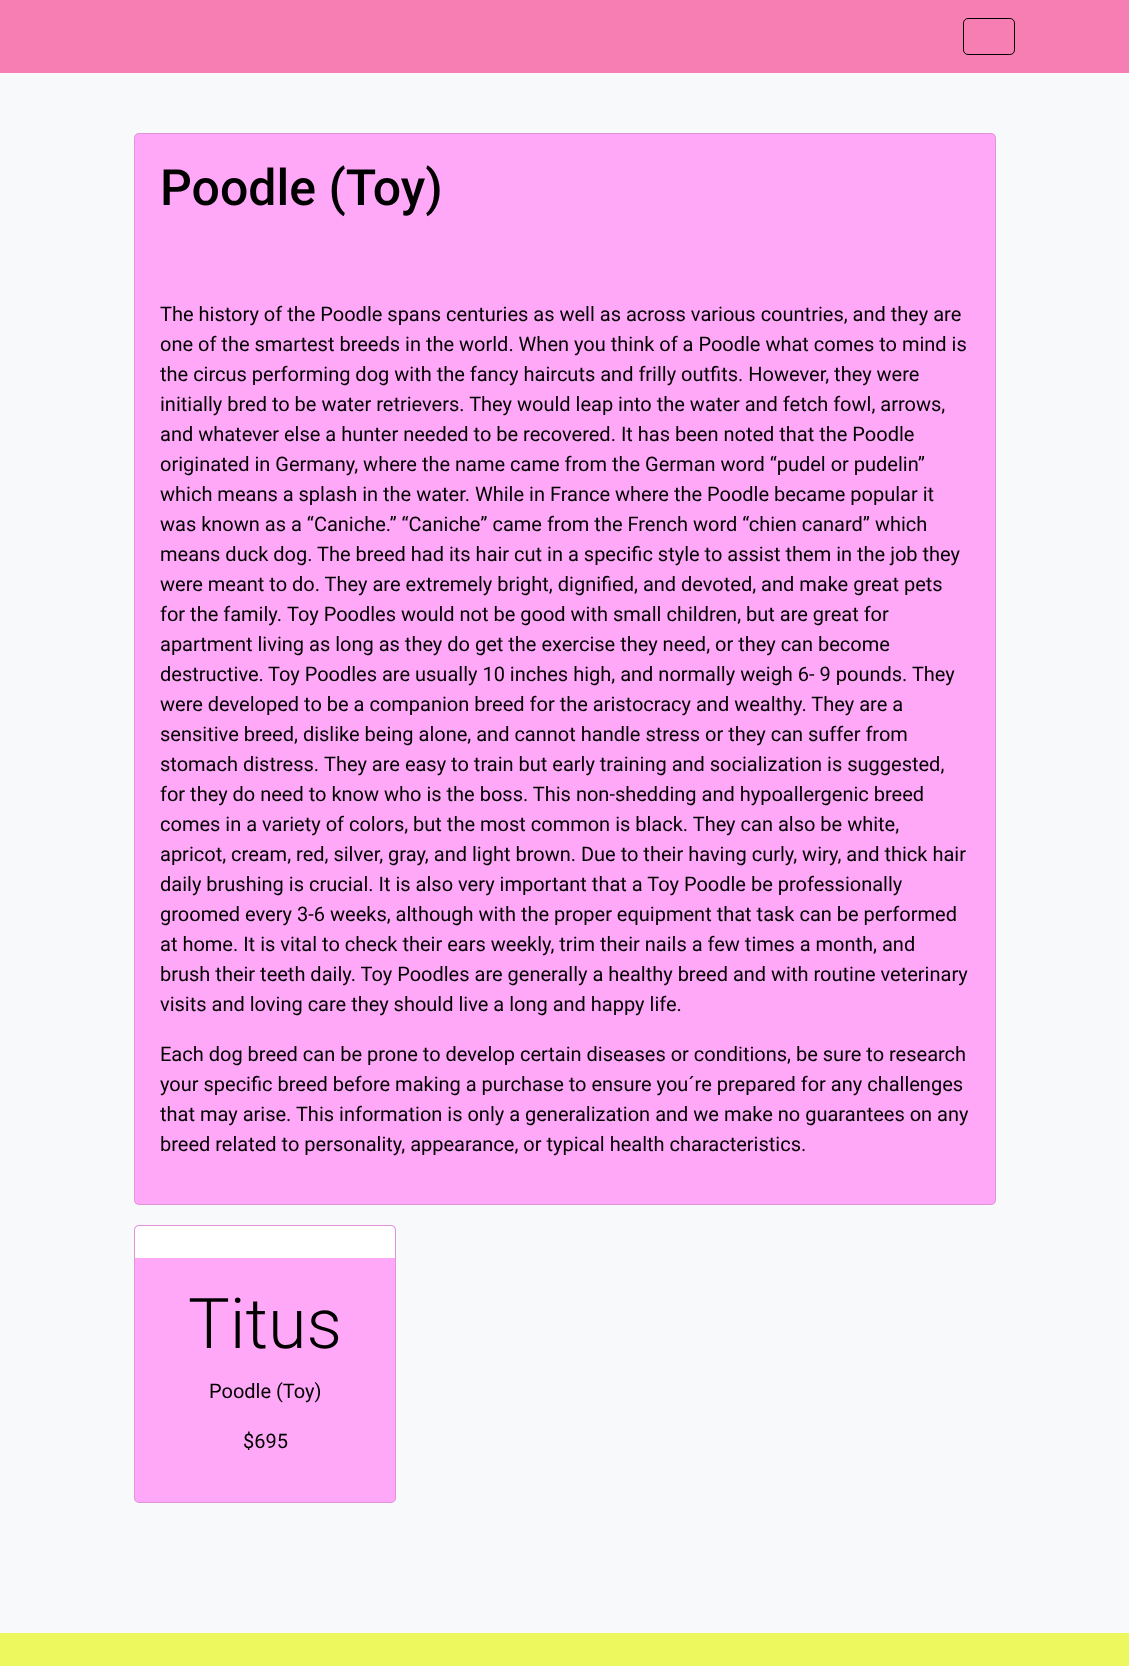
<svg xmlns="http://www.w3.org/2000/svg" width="1129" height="1666">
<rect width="100%" height="100%" fill="#f8f9fa"/>
<rect width="1129" height="73" fill="#f77eb2"/>
<rect x="963.5" y="18.5" width="51" height="36" rx="4.5" fill="none" stroke="#000"/>
<rect x="134" y="133" width="862" height="1072" rx="5" fill="#ffa8f8"/>
<rect x="134.5" y="133.5" width="861" height="1071" rx="4.5" fill="none" stroke="#0000001f"/>
<text x="160" y="205" style="font-family:Roboto;font-size:50px;font-weight:500;fill:#000">Poodle (Toy)</text>
<text x="160" y="321" style="font-family:Roboto;font-size:20px;fill:#000">The history of the Poodle spans centuries as well as across various countries, and they are</text>
<text x="160" y="351" style="font-family:Roboto;font-size:20px;fill:#000">one of the smartest breeds in the world. When you think of a Poodle what comes to mind is</text>
<text x="160" y="381" style="font-family:Roboto;font-size:20px;fill:#000">the circus performing dog with the fancy haircuts and frilly outfits. However, they were</text>
<text x="160" y="411" style="font-family:Roboto;font-size:20px;fill:#000">initially bred to be water retrievers. They would leap into the water and fetch fowl, arrows,</text>
<text x="160" y="441" style="font-family:Roboto;font-size:20px;fill:#000">and whatever else a hunter needed to be recovered. It has been noted that the Poodle</text>
<text x="160" y="471" style="font-family:Roboto;font-size:20px;fill:#000">originated in Germany, where the name came from the German word “pudel or pudelin”</text>
<text x="160" y="501" style="font-family:Roboto;font-size:20px;fill:#000">which means a splash in the water. While in France where the Poodle became popular it</text>
<text x="160" y="531" style="font-family:Roboto;font-size:20px;fill:#000">was known as a “Caniche.” “Caniche” came from the French word “chien canard” which</text>
<text x="160" y="561" style="font-family:Roboto;font-size:20px;fill:#000">means duck dog.</text>
<text x="317" y="561" style="font-family:Roboto;font-size:20px;fill:#000">The breed had its hair cut in a specific style to assist them in the job they</text>
<text x="160" y="591" style="font-family:Roboto;font-size:20px;fill:#000">were meant to do. They are extremely bright, dignified, and devoted, and make great pets</text>
<text x="160" y="621" style="font-family:Roboto;font-size:20px;fill:#000">for the family.</text>
<text x="287" y="621" style="font-family:Roboto;font-size:20px;fill:#000">Toy Poodles would not be good with small children, but are great for</text>
<text x="160" y="651" style="font-family:Roboto;font-size:20px;fill:#000">apartment living as long as they do get the exercise they need, or they can become</text>
<text x="160" y="681" style="font-family:Roboto;font-size:20px;fill:#000">destructive.</text>
<text x="268" y="681" style="font-family:Roboto;font-size:20px;fill:#000">Toy Poodles are usually 10 inches high, and normally weigh 6- 9 pounds. They</text>
<text x="160" y="711" style="font-family:Roboto;font-size:20px;fill:#000">were developed to be a companion breed for the aristocracy and wealthy. They are a</text>
<text x="160" y="741" style="font-family:Roboto;font-size:20px;fill:#000">sensitive breed, dislike being alone, and cannot handle stress or they can suffer from</text>
<text x="160" y="771" style="font-family:Roboto;font-size:20px;fill:#000">stomach distress.</text>
<text x="324" y="771" style="font-family:Roboto;font-size:20px;fill:#000">They are easy to train but early training and socialization is suggested,</text>
<text x="160" y="801" style="font-family:Roboto;font-size:20px;fill:#000">for they do need to know who is the boss. This non-shedding and hypoallergenic breed</text>
<text x="160" y="831" style="font-family:Roboto;font-size:20px;fill:#000">comes in a variety of colors, but the most common is black. They can also be white,</text>
<text x="160" y="861" style="font-family:Roboto;font-size:20px;fill:#000">apricot, cream, red, silver, gray, and light brown. Due to their having curly, wiry, and thick hair</text>
<text x="160" y="891" style="font-family:Roboto;font-size:20px;fill:#000">daily brushing is crucial. It is also very important that a Toy Poodle be professionally</text>
<text x="160" y="921" style="font-family:Roboto;font-size:20px;fill:#000">groomed every 3-6 weeks, although with the proper equipment that task can be performed</text>
<text x="160" y="951" style="font-family:Roboto;font-size:20px;fill:#000">at home. It is vital to check their ears weekly, trim their nails a few times a month, and</text>
<text x="160" y="981" style="font-family:Roboto;font-size:20px;fill:#000">brush their teeth daily. Toy Poodles are generally a healthy breed and with routine veterinary</text>
<text x="160" y="1011" style="font-family:Roboto;font-size:20px;fill:#000">visits and loving care they should live a long and happy life.</text>
<text x="160" y="1061" style="font-family:Roboto;font-size:20px;fill:#000">Each dog breed can be prone to develop certain diseases or conditions, be sure to research</text>
<text x="160" y="1091" style="font-family:Roboto;font-size:20px;fill:#000">your specific breed before making a purchase to ensure you´re prepared for any challenges</text>
<text x="160" y="1121" style="font-family:Roboto;font-size:20px;fill:#000">that may arise. This information is only a generalization and we make no guarantees on any</text>
<text x="160" y="1151" style="font-family:Roboto;font-size:20px;fill:#000">breed related to personality, appearance, or typical health characteristics.</text>
<rect x="134" y="1225" width="262" height="278" rx="5" fill="#ffa8f8"/>
<rect x="134.5" y="1225.5" width="261" height="277" rx="4.5" fill="none" stroke="#0000001f"/>
<path d="M139 1226h252c2 0 4 2 4 4v28h-260v-28c0-2 2-4 4-4z" fill="#fff"/>
<text x="188" y="1348" style="font-family:Roboto;font-size:70px;font-weight:300;fill:#000">Titus</text>
<text x="209" y="1398" style="font-family:Roboto;font-size:20px;fill:#000">Poodle (Toy)</text>
<text x="243" y="1448" style="font-family:Roboto;font-size:20px;fill:#000">$695</text>
<rect y="1633" width="1129" height="33" fill="#edf75e"/>
</svg>
